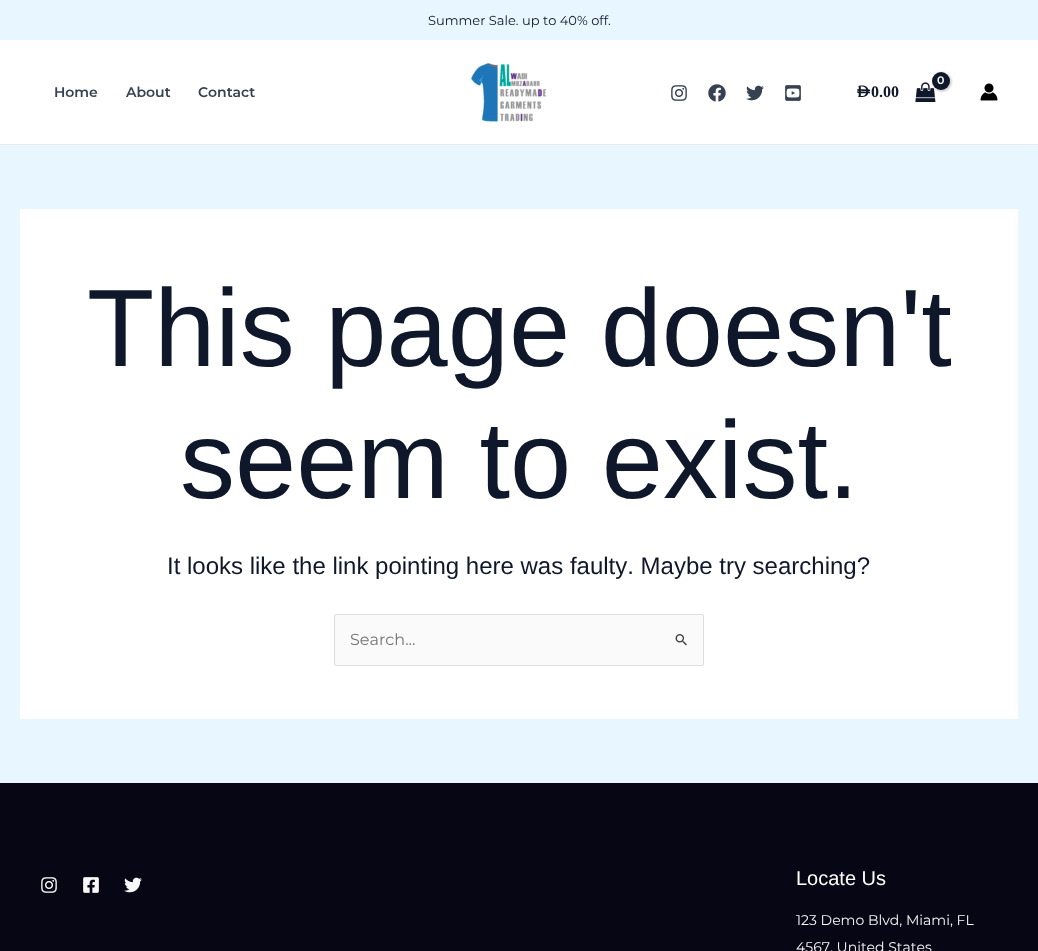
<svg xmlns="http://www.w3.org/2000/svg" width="1038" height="951">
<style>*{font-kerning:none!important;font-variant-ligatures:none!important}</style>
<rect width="100%" height="100%" fill="#e7f6ff"/>
<text x="428" y="25" style="font-family:Montserrat;font-size:13px;fill:#0f172a">Summer Sale. up to 40% off.</text>
<rect y="40" width="1038" height="104" fill="#fff"/>
<rect y="144" width="1038" height="1" fill="#eaeaea"/>
<text x="54" y="97" style="font-family:Montserrat;font-size:14px;font-weight:600;fill:#364151">Home</text>
<text x="126" y="97" style="font-family:Montserrat;font-size:14px;font-weight:600;fill:#364151">About</text>
<text x="198" y="97" style="font-family:Montserrat;font-size:14px;font-weight:600;fill:#364151">Contact</text>
<image x="471" y="62" width="76" height="60" href="media/1.png"/>
<image x="671" y="85" width="16" height="16" href="media/2.png"/>
<image x="708" y="84" width="18" height="18" href="media/3.png"/>
<image x="746" y="85" width="18" height="16" href="media/4.png"/>
<image x="785" y="85" width="16" height="16" href="media/5.png"/>
<image x="915" y="82" width="21" height="20" href="media/6.png"/>
<rect x="933" y="73" width="18" height="18" rx="9" fill="#0000004d" filter="blur(1.5px)"/>
<circle cx="941" cy="81" r="9" fill="#0f172a"/>
<text x="937" y="84" style="font-family:Montserrat;font-size:11px;font-weight:600;fill:#fff">0</text>
<text x="855" y="97" style="font-family:'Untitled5';font-size:16px;font-weight:bold;fill:#0f172a">AED</text>
<text x="871" y="97" style="font-family:Liberation Serif;font-size:16px;font-weight:bold;fill:#0f172a">0.00</text>
<image x="980" y="83" width="18" height="18" href="media/7.png"/>
<rect x="20" y="209" width="998" height="510" fill="#fff"/>
<text x="87" y="366" style="font-family:Liberation Sans;font-size:110px;fill:#0f172a">This page doesn't</text>
<text x="180" y="498" style="font-family:Liberation Sans;font-size:110px;fill:#0f172a">seem to exist.</text>
<text x="167" y="574" style="font-family:Liberation Sans;font-size:24px;fill:#0f172a">It looks like the link pointing here was faulty. Maybe try searching?</text>
<rect x="334.5" y="614.5" width="369" height="51" rx="1.5" fill="#fafafa" stroke="#ddd"/>
<text x="350" y="645" style="font-family:Montserrat;font-size:16px;fill:#757575">Search...</text>
<image x="675" y="634" width="12" height="12" href="media/8.png"/>
<rect y="783" width="1038" height="168" fill="#070614"/>
<image x="41" y="877" width="16" height="16" href="media/9.png"/>
<image x="83" y="877" width="16" height="16" href="media/10.png"/>
<image x="124" y="877" width="18" height="16" href="media/11.png"/>
<text x="796" y="885" style="font-family:Liberation Sans;font-size:20px;fill:#fff">Locate Us</text>
<text x="796" y="925" style="font-family:Montserrat;font-size:14px;fill:#f7f7f7">123 Demo Blvd, Miami, FL</text>
<text x="796" y="952" style="font-family:Montserrat;font-size:14px;fill:#f7f7f7">4567, United States</text>
</svg>
